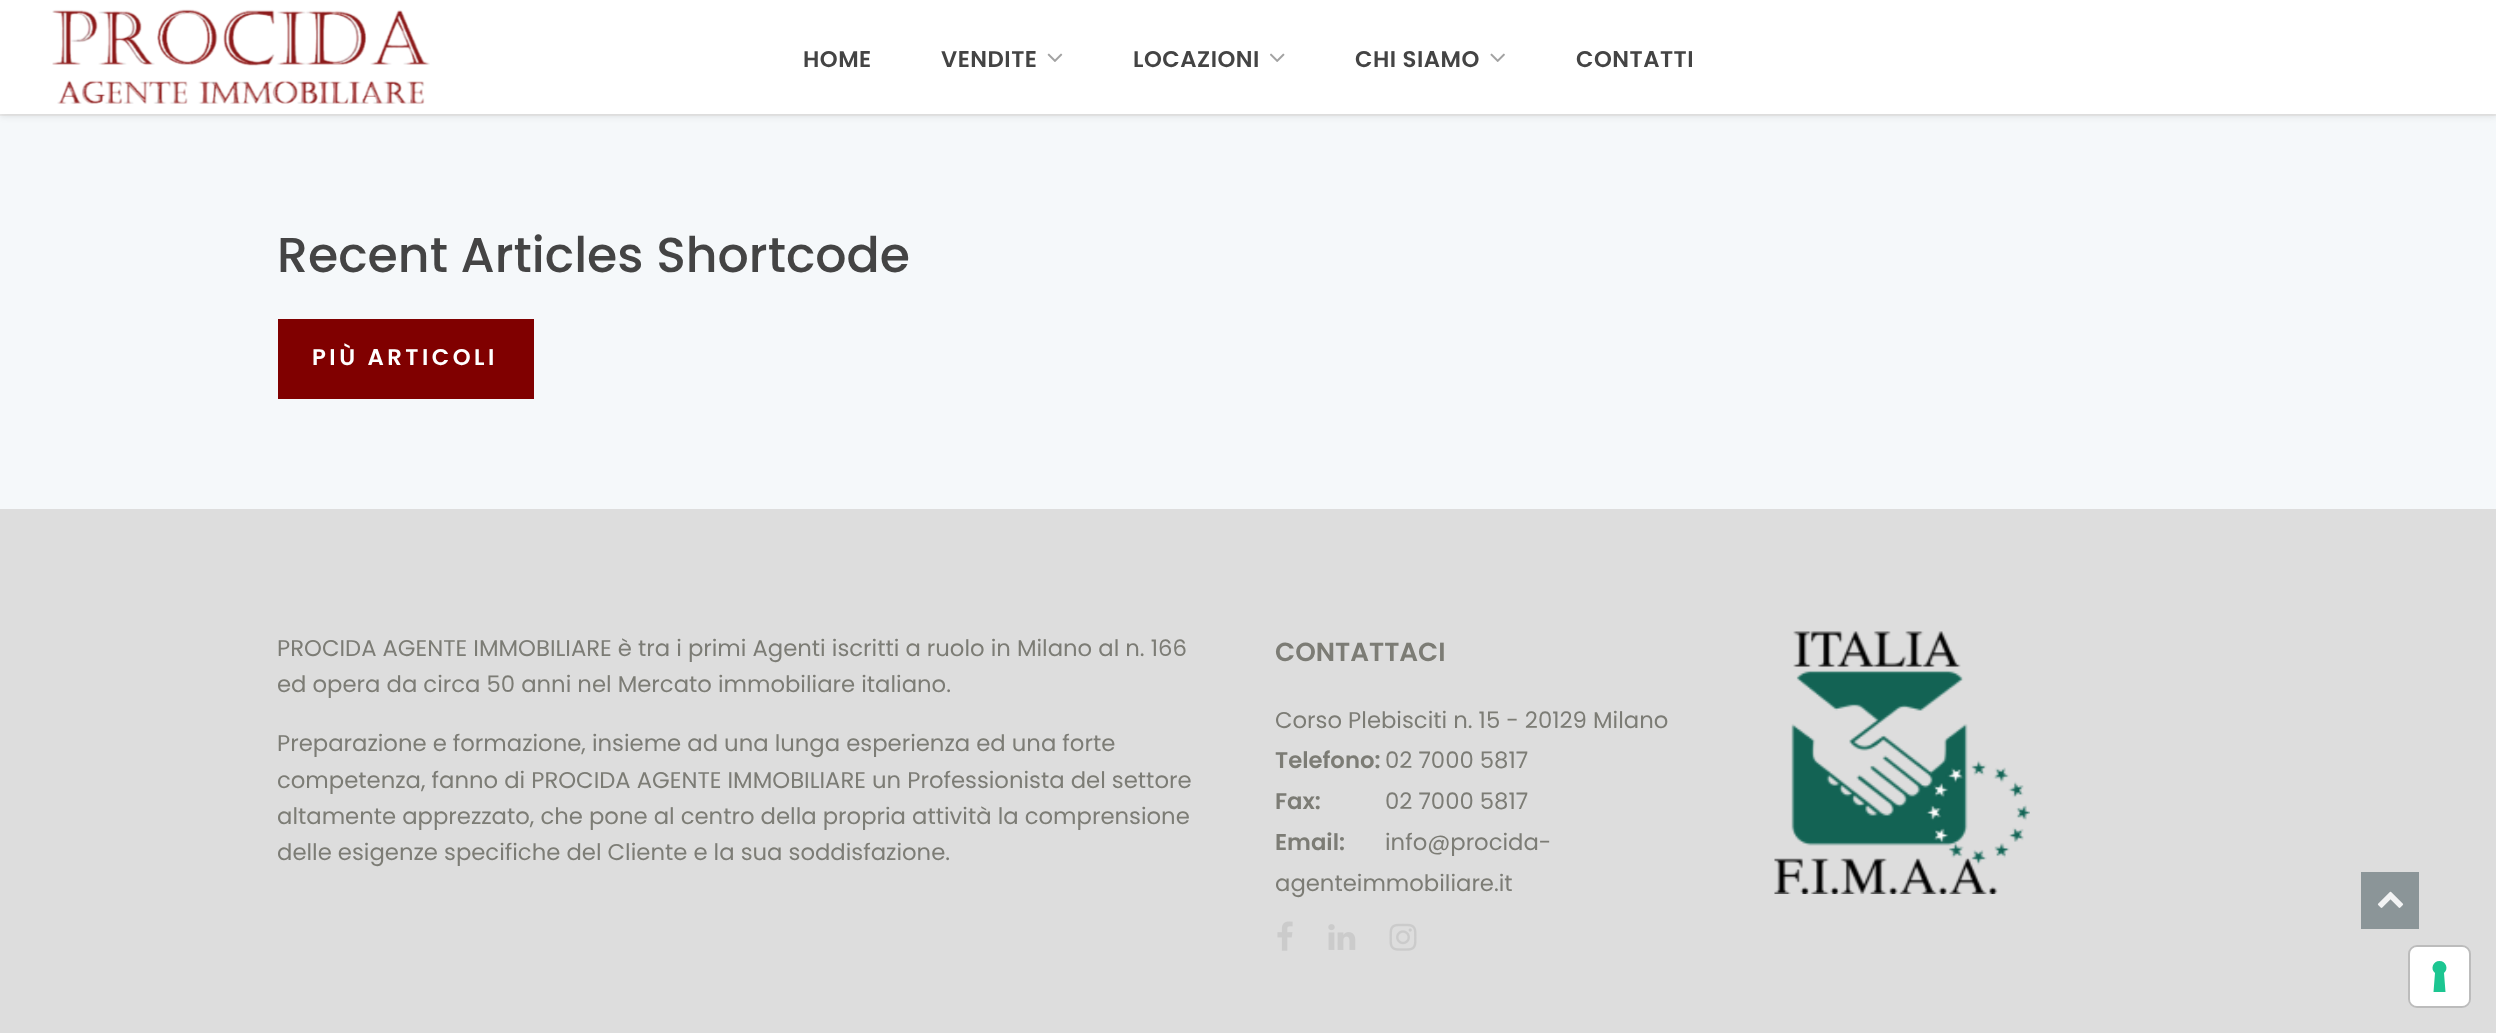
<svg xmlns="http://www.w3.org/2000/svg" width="2496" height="1033">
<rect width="100%" height="100%" fill="#f5f8fa"/>
<rect y="114" width="2496" height="2" fill="#ededed"/>
<rect y="2" width="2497" height="114" fill="#0000001a" filter="blur(3.5px)"/>
<rect width="2496" height="114" fill="#fff"/>
<image x="52" y="9" width="378" height="95" href="media/1.png"/>
<text x="803" y="67" style="font-family:Poppins;font-size:22.75px;font-weight:600;letter-spacing:0.5px;fill:#444">HOME</text>
<text x="941" y="67" style="font-family:Poppins;font-size:22.75px;font-weight:600;letter-spacing:0.5px;fill:#444">VENDITE</text>
<image x="1047" y="53" width="16" height="9" href="media/2.png"/>
<text x="1133" y="67" style="font-family:Poppins;font-size:22.75px;font-weight:600;letter-spacing:0.5px;fill:#444">LOCAZIONI</text>
<image x="1270" y="53" width="15" height="9" href="media/3.png"/>
<text x="1355" y="67" style="font-family:Poppins;font-size:22.75px;font-weight:600;letter-spacing:0.5px;fill:#444">CHI SIAMO</text>
<image x="1490" y="53" width="15" height="9" href="media/4.png"/>
<text x="1576" y="67" style="font-family:Poppins;font-size:22.75px;font-weight:600;letter-spacing:0.5px;fill:#444">CONTATTI</text>
<text x="277" y="272" style="font-family:Poppins;font-size:49px;font-weight:500;fill:#444">Recent Articles Shortcode</text>
<rect x="278" y="319" width="256" height="80" fill="#800000"/>
<text x="312" y="365" style="font-family:Poppins;font-size:22.75px;font-weight:600;letter-spacing:3.5px;fill:#fff">PIÙ ARTICOLI</text>
<rect y="509" width="2496" height="524" fill="#ddd"/>
<text x="277" y="656" style="font-family:Poppins;font-size:22.75px;fill:#7c7c75">PROCIDA AGENTE IMMOBILIARE è tra i primi Agenti iscritti a ruolo in Milano al n. 166</text>
<text x="277" y="692" style="font-family:Poppins;font-size:22.75px;fill:#7c7c75">ed opera da circa 50 anni nel Mercato immobiliare italiano.</text>
<text x="277" y="751" style="font-family:Poppins;font-size:22.75px;fill:#7c7c75">Preparazione e formazione, insieme ad una lunga esperienza ed una forte</text>
<text x="277" y="788" style="font-family:Poppins;font-size:22.75px;fill:#7c7c75">competenza, fanno di PROCIDA AGENTE IMMOBILIARE un Professionista del settore</text>
<text x="277" y="824" style="font-family:Poppins;font-size:22.75px;fill:#7c7c75">altamente apprezzato, che pone al centro della propria attività la comprensione</text>
<text x="277" y="860" style="font-family:Poppins;font-size:22.75px;fill:#7c7c75">delle esigenze specifiche del Cliente e la sua soddisfazione.</text>
<text x="1275" y="661" style="font-family:Poppins;font-size:26.25px;font-weight:600;fill:#7c7c75">CONTATTACI</text>
<text x="1275" y="728" style="font-family:Poppins;font-size:22.75px;fill:#7c7c75">Corso Plebisciti n. 15 - 20129 Milano</text>
<text x="1275" y="768" style="font-family:Poppins;font-size:22.75px;font-weight:600;fill:#7c7c75">Telefono:</text>
<text x="1385" y="768" style="font-family:Poppins;font-size:22.75px;fill:#7c7c75">02 7000 5817</text>
<text x="1275" y="809" style="font-family:Poppins;font-size:22.75px;font-weight:600;fill:#7c7c75">Fax:</text>
<text x="1385" y="809" style="font-family:Poppins;font-size:22.75px;fill:#7c7c75">02 7000 5817</text>
<text x="1275" y="850" style="font-family:Poppins;font-size:22.75px;font-weight:600;fill:#7c7c75">Email:</text>
<text x="1385" y="850" style="font-family:Poppins;font-size:22.75px;fill:#7c7c75">info@procida-</text>
<text x="1275" y="891" style="font-family:Poppins;font-size:22.75px;fill:#7c7c75">agenteimmobiliare.it</text>
<image x="1277" y="921" width="16" height="30" href="media/5.png"/>
<image x="1328" y="924" width="28" height="26" href="media/6.png"/>
<image x="1389" y="923" width="28" height="28" href="media/7.png"/>
<image x="1774" y="631" width="256" height="263" href="media/8.png"/>
<rect x="2361" y="872" width="58" height="57" fill="#8b9598"/>
<image x="2377" y="891" width="27" height="17" href="media/9.png"/>
<rect x="2409" y="946" width="61" height="61" rx="8" fill="none" stroke="#bcbcbc" stroke-width="2"/>
<rect x="2410" y="947" width="59" height="59" rx="7" fill="#fff"/>
<path d="M2439.5 961c6.5 0 9.5 8 4.5 12l1.5 19h-12l1.5-19c-5-4-2-12 4.5-12z" fill="#1cc691" fill-rule="evenodd"/>
</svg>
